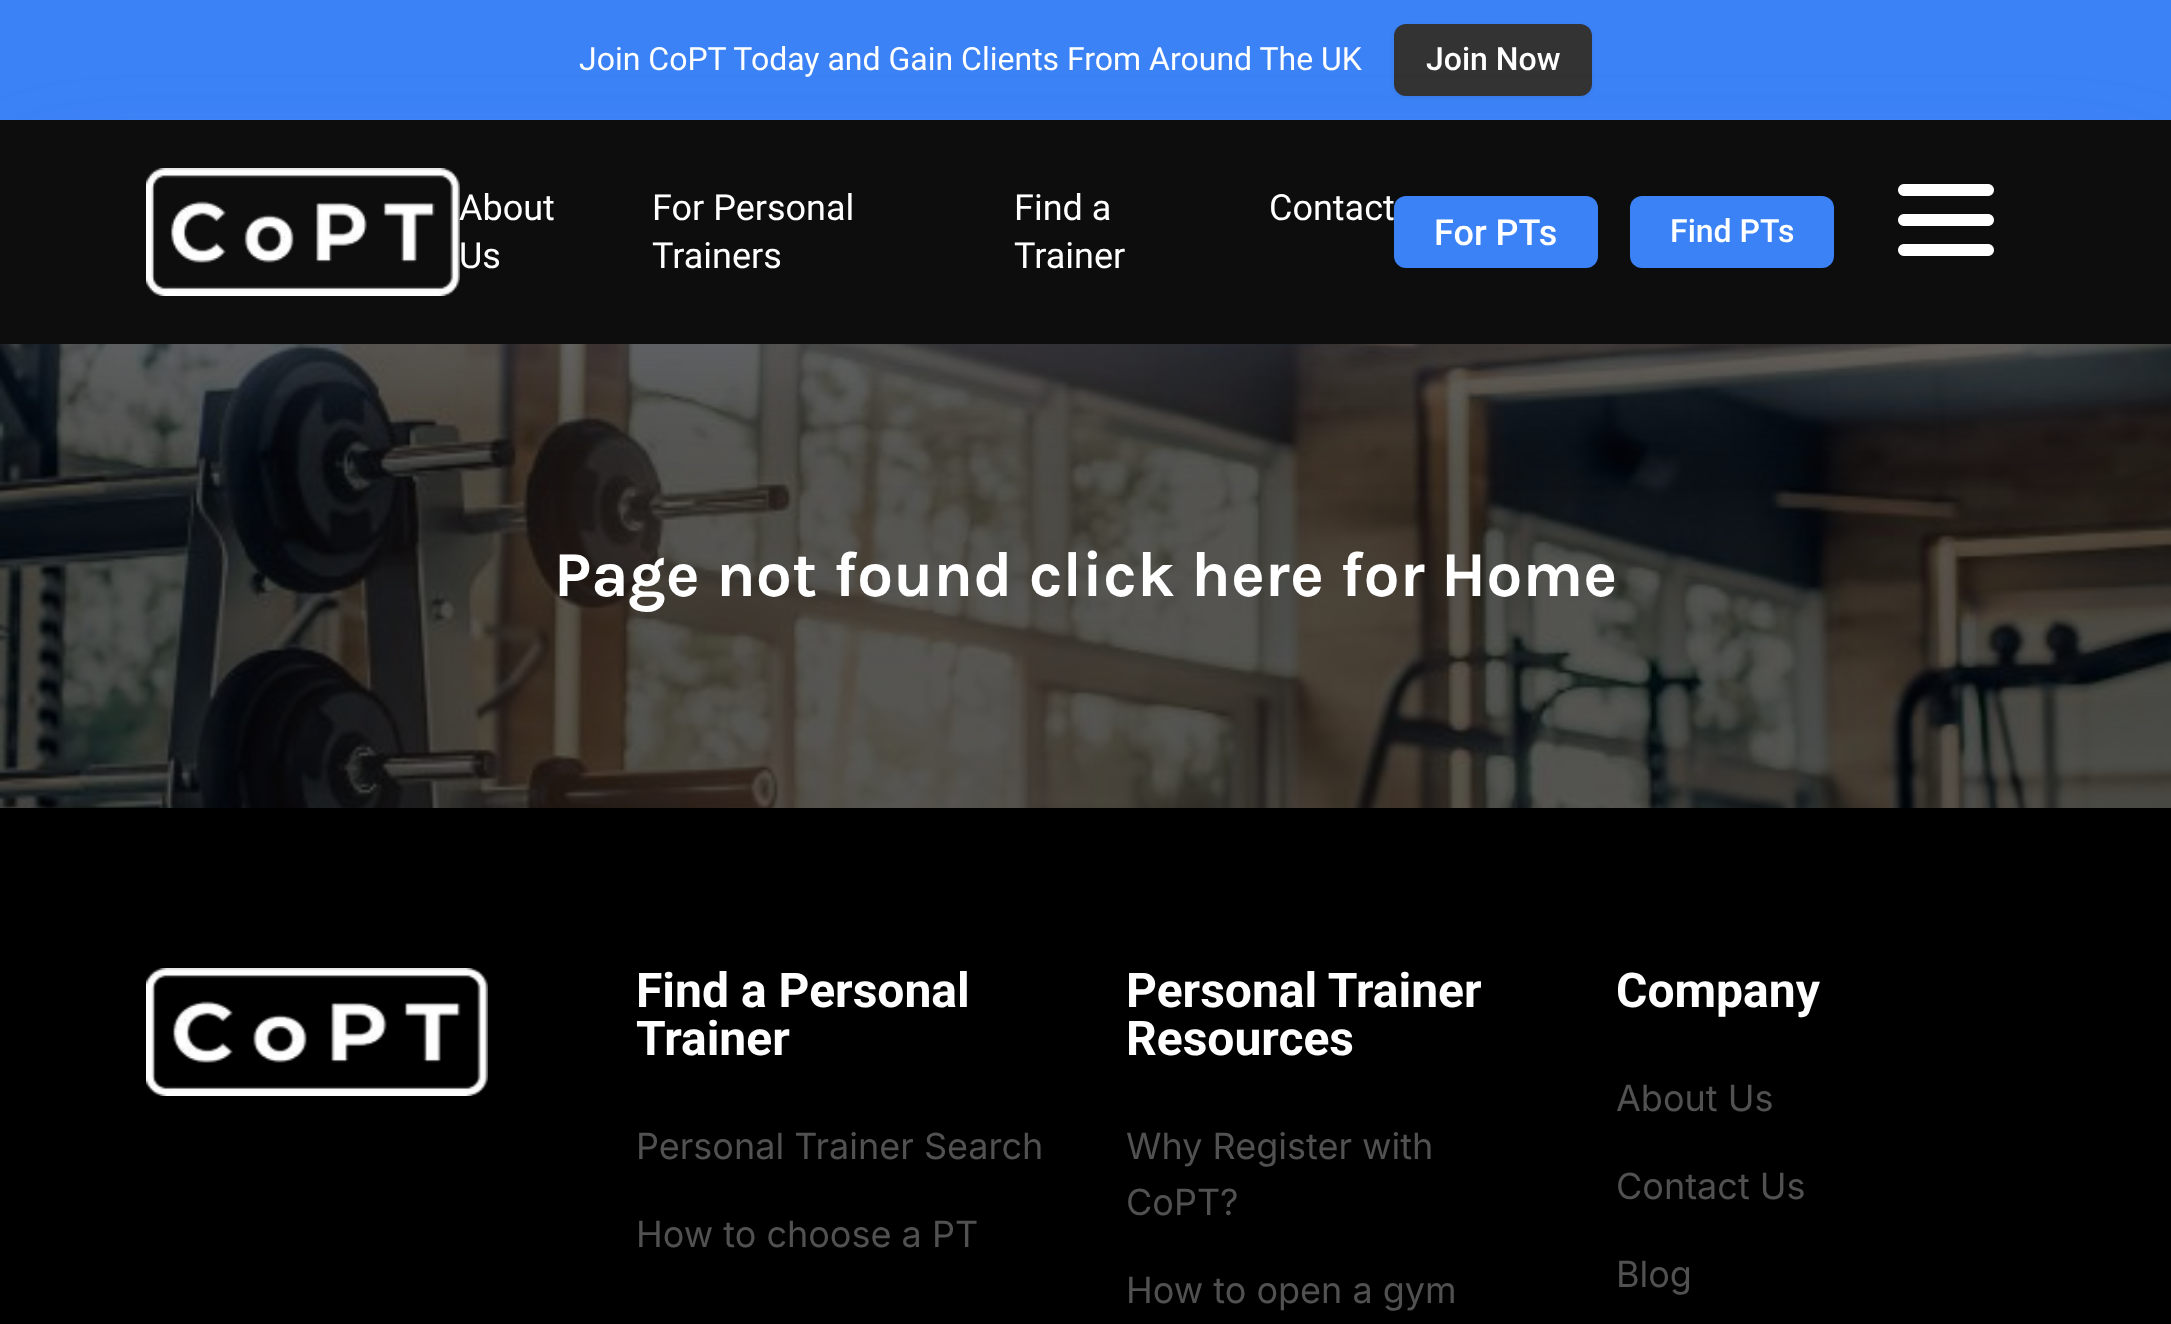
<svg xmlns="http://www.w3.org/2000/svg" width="2171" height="1324">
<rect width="100%" height="100%" fill="#3b82f6"/>
<text x="579" y="70" style="font-family:Roboto;font-size:32px;fill:#fff">Join CoPT Today and Gain Clients From Around The UK</text>
<rect x="1394" y="26" width="198" height="72" rx="12" fill="#0000000d" filter="blur(2px)"/>
<rect x="1394" y="24" width="198" height="72" rx="12" fill="#333"/>
<text x="1426" y="70" style="font-family:Roboto;font-size:32px;font-weight:500;fill:#fff">Join Now</text>
<image x="0" y="344" width="2171" height="464" href="media/3.png"/>
<rect x="30" y="200" width="2112" height="164" fill="#b4c3e533" filter="blur(60px)"/>
<rect y="120" width="2171" height="224" fill="#0d0d0d"/>
<image x="146" y="168" width="314" height="128" href="media/1.png"/>
<text x="459" y="220" style="font-family:Roboto;font-size:36px;fill:#fff">About</text>
<text x="459" y="268" style="font-family:Roboto;font-size:36px;fill:#fff">Us</text>
<text x="652" y="220" style="font-family:Roboto;font-size:36px;fill:#fff">For Personal</text>
<text x="652" y="268" style="font-family:Roboto;font-size:36px;fill:#fff">Trainers</text>
<text x="1014" y="220" style="font-family:Roboto;font-size:36px;fill:#fff">Find a</text>
<text x="1014" y="268" style="font-family:Roboto;font-size:36px;fill:#fff">Trainer</text>
<text x="1269" y="220" style="font-family:Roboto;font-size:36px;fill:#fff">Contact</text>
<rect x="1394" y="196" width="204" height="72" rx="12" fill="#3b82f6"/>
<text x="1434" y="245" style="font-family:Roboto;font-size:36px;font-weight:500;fill:#fff">For PTs</text>
<rect x="1630" y="196" width="204" height="72" rx="12" fill="#3b82f6"/>
<text x="1670" y="242" style="font-family:Roboto;font-size:32px;font-weight:500;fill:#fff">Find PTs</text>
<image x="1898" y="184" width="96" height="72" href="media/2.png"/>
<text x="554" y="596" style="font-family:Karla;font-size:64px;font-weight:bold;fill:#fff">Page not found click here for Home</text>
<rect y="808" width="2171" height="516" fill="#000"/>
<image x="146" y="968" width="342" height="128" href="media/4.png"/>
<text x="636" y="1007" style="font-family:Roboto;font-size:48px;font-weight:bold;fill:#fff">Find a Personal</text>
<text x="636" y="1055" style="font-family:Roboto;font-size:48px;font-weight:bold;fill:#fff">Trainer</text>
<text x="636" y="1159" style="font-family:Inter;font-size:36px;fill:#515151">Personal Trainer Search</text>
<text x="636" y="1247" style="font-family:Inter;font-size:36px;fill:#515151">How to choose a PT</text>
<text x="1126" y="1007" style="font-family:Roboto;font-size:48px;font-weight:bold;fill:#fff">Personal Trainer</text>
<text x="1126" y="1055" style="font-family:Roboto;font-size:48px;font-weight:bold;fill:#fff">Resources</text>
<text x="1126" y="1159" style="font-family:Inter;font-size:36px;fill:#515151">Why Register with</text>
<text x="1126" y="1215" style="font-family:Inter;font-size:36px;fill:#515151">CoPT?</text>
<text x="1126" y="1303" style="font-family:Inter;font-size:36px;fill:#515151">How to open a gym</text>
<text x="1616" y="1007" style="font-family:Roboto;font-size:48px;font-weight:bold;fill:#fff">Company</text>
<text x="1616" y="1111" style="font-family:Inter;font-size:36px;fill:#515151">About Us</text>
<text x="1616" y="1199" style="font-family:Inter;font-size:36px;fill:#515151">Contact Us</text>
<text x="1616" y="1287" style="font-family:Inter;font-size:36px;fill:#515151">Blog</text>
</svg>
